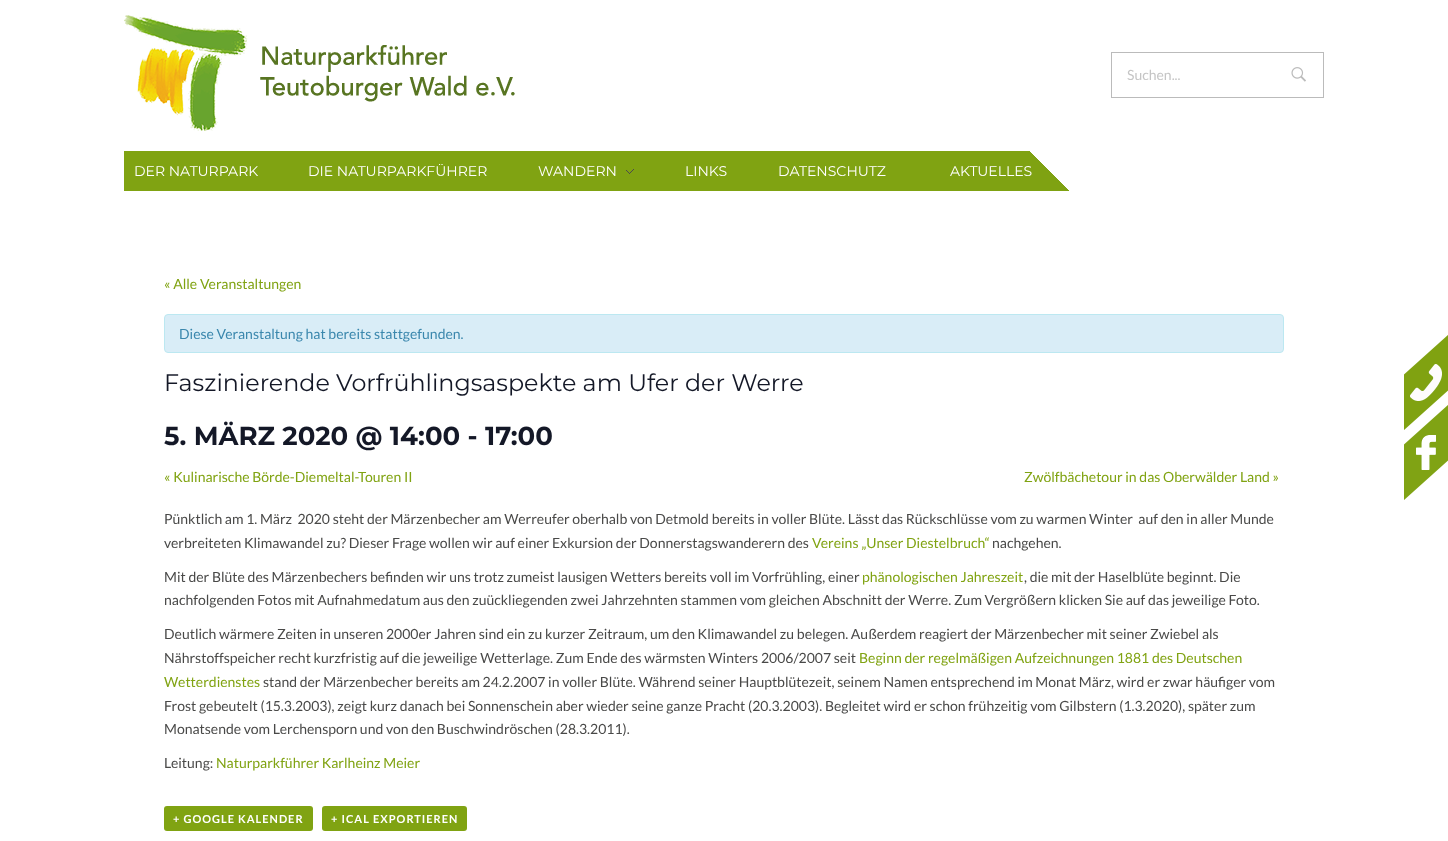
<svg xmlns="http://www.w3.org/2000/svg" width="1448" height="841">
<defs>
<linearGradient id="g1" gradientUnits="userSpaceOnUse" x1="963" y1="214" x2="1049" y2="128"><stop offset="0" stop-color="#7fa212"/><stop offset="0.75" stop-color="#7fa212"/><stop offset="0.75" stop-color="#fff"/><stop offset="1" stop-color="#fff"/></linearGradient>
</defs>
<rect width="100%" height="100%" fill="#fff"/>
<image x="124" y="15" width="391" height="116" href="media/1.png"/>
<rect x="1111.5" y="52.5" width="212" height="45" fill="none" stroke="#bbb"/>
<text x="1127" y="80" style="font-family:Lato;font-size:14px;fill:#c5c5c5">Suchen...</text>
<image x="1291" y="67" width="15" height="15" href="media/2.png"/>
<rect x="124" y="151" width="816" height="40" fill="#80a312"/>
<text x="134" y="176" style="font-family:Montserrat;font-size:14px;font-weight:100;fill:#fff">DER NATURPARK</text>
<text x="308" y="176" style="font-family:Montserrat;font-size:14px;font-weight:100;fill:#fff">DIE NATURPARKFÜHRER</text>
<text x="538" y="176" style="font-family:Montserrat;font-size:14px;font-weight:100;fill:#fff">WANDERN</text>
<image x="626" y="169" width="8" height="5" href="media/3.png"/>
<text x="685" y="176" style="font-family:Montserrat;font-size:14px;font-weight:100;fill:#fff">LINKS</text>
<text x="778" y="176" style="font-family:Montserrat;font-size:14px;font-weight:100;fill:#fff">DATENSCHUTZ</text>
<rect x="940" y="151" width="129" height="40" fill="url(#g1)"/>
<text x="950" y="176" style="font-family:Montserrat;font-size:14px;font-weight:100;fill:#fff">AKTUELLES</text>
<text x="164" y="289" style="font-family:Lato;font-size:14px;fill:#80a312">« Alle Veranstaltungen</text>
<rect x="164.5" y="314.5" width="1119" height="38" rx="3.5" fill="#d9edf7" stroke="#bce8f1"/>
<text x="179" y="339" style="font-family:Lato;font-size:14px;fill:#3a87ad">Diese Veranstaltung hat bereits stattgefunden.</text>
<text x="164" y="391" style="font-family:Montserrat;font-size:23.8px;font-weight:100;fill:#141827">Faszinierende Vorfrühlingsaspekte am Ufer der Werre</text>
<text x="164" y="445" style="font-family:'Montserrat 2';font-size:26px;font-weight:100;fill:#141827">5. MÄRZ 2020 @ 14:00 - 17:00</text>
<text x="164" y="482" style="font-family:Lato;font-size:14px;fill:#80a312">« Kulinarische Börde-Diemeltal-Touren II</text>
<text x="1024" y="482" style="font-family:Lato;font-size:14px;fill:#80a312">Zwölfbächetour in das Oberwälder Land »</text>
<text x="164" y="524" style="font-family:Lato;font-size:14px;fill:#494948" xml:space="preserve">Pünktlich am 1. März  2020 steht der Märzenbecher am Werreufer oberhalb von Detmold bereits in voller Blüte. Lässt das Rückschlüsse vom zu warmen Winter  auf den in aller Munde</text>
<text x="164" y="548" style="font-family:Lato;font-size:14px;fill:#494948">verbreiteten Klimawandel zu? Dieser Frage wollen wir auf einer Exkursion der Donnerstagswanderern des</text>
<text x="812" y="548" style="font-family:Lato;font-size:14px;fill:#80a312">Vereins „Unser Diestelbruch“</text>
<text x="992" y="548" style="font-family:Lato;font-size:14px;fill:#494948">nachgehen.</text>
<text x="164" y="582" style="font-family:Lato;font-size:14px;fill:#494948">Mit der Blüte des Märzenbechers befinden wir uns trotz zumeist lausigen Wetters bereits voll im Vorfrühling, einer</text>
<text x="862" y="582" style="font-family:Lato;font-size:14px;fill:#80a312">phänologischen Jahreszeit</text>
<text x="1024" y="582" style="font-family:Lato;font-size:14px;fill:#494948">, die mit der Haselblüte beginnt. Die</text>
<text x="164" y="605" style="font-family:Lato;font-size:14px;fill:#494948">nachfolgenden Fotos mit Aufnahmedatum aus den zuückliegenden zwei Jahrzehnten stammen vom gleichen Abschnitt der Werre. Zum Vergrößern klicken Sie auf das jeweilige Foto.</text>
<text x="164" y="639" style="font-family:Lato;font-size:14px;fill:#494948">Deutlich wärmere Zeiten in unseren 2000er Jahren sind ein zu kurzer Zeitraum, um den Klimawandel zu belegen. Außerdem reagiert der Märzenbecher mit seiner Zwiebel als</text>
<text x="164" y="663" style="font-family:Lato;font-size:14px;fill:#494948">Nährstoffspeicher recht kurzfristig auf die jeweilige Wetterlage. Zum Ende des wärmsten Winters 2006/2007 seit</text>
<text x="859" y="663" style="font-family:Lato;font-size:14px;fill:#80a312">Beginn der regelmäßigen Aufzeichnungen 1881 des Deutschen</text>
<text x="164" y="687" style="font-family:Lato;font-size:14px;fill:#80a312">Wetterdienstes</text>
<text x="263" y="687" style="font-family:Lato;font-size:14px;fill:#494948">stand der Märzenbecher bereits am 24.2.2007 in voller Blüte. Während seiner Hauptblütezeit, seinem Namen entsprechend im Monat März, wird er zwar häufiger vom</text>
<text x="164" y="711" style="font-family:Lato;font-size:14px;fill:#494948">Frost gebeutelt (15.3.2003), zeigt kurz danach bei Sonnenschein aber wieder seine ganze Pracht (20.3.2003). Begleitet wird er schon frühzeitig vom Gilbstern (1.3.2020), später zum</text>
<text x="164" y="734" style="font-family:Lato;font-size:14px;fill:#494948">Monatsende vom Lerchensporn und von den Buschwindröschen (28.3.2011).</text>
<text x="164" y="768" style="font-family:Lato;font-size:14px;fill:#494948">Leitung:</text>
<text x="216" y="768" style="font-family:Lato;font-size:14px;fill:#80a312">Naturparkführer Karlheinz Meier</text>
<rect x="164" y="806" width="149" height="25" rx="3" fill="#80a312"/>
<text x="173" y="823" style="font-family:Lato;font-size:11px;font-weight:bold;letter-spacing:1px;fill:#fff">+ GOOGLE KALENDER</text>
<rect x="322" y="806" width="145" height="25" rx="3" fill="#80a312"/>
<text x="331" y="823" style="font-family:Lato;font-size:11px;font-weight:bold;letter-spacing:1px;fill:#fff">+ ICAL EXPORTIEREN</text>
<image x="1404" y="335" width="44" height="95" href="media/4.png"/>
<image x="1404" y="405" width="44" height="95" href="media/5.png"/>
</svg>
